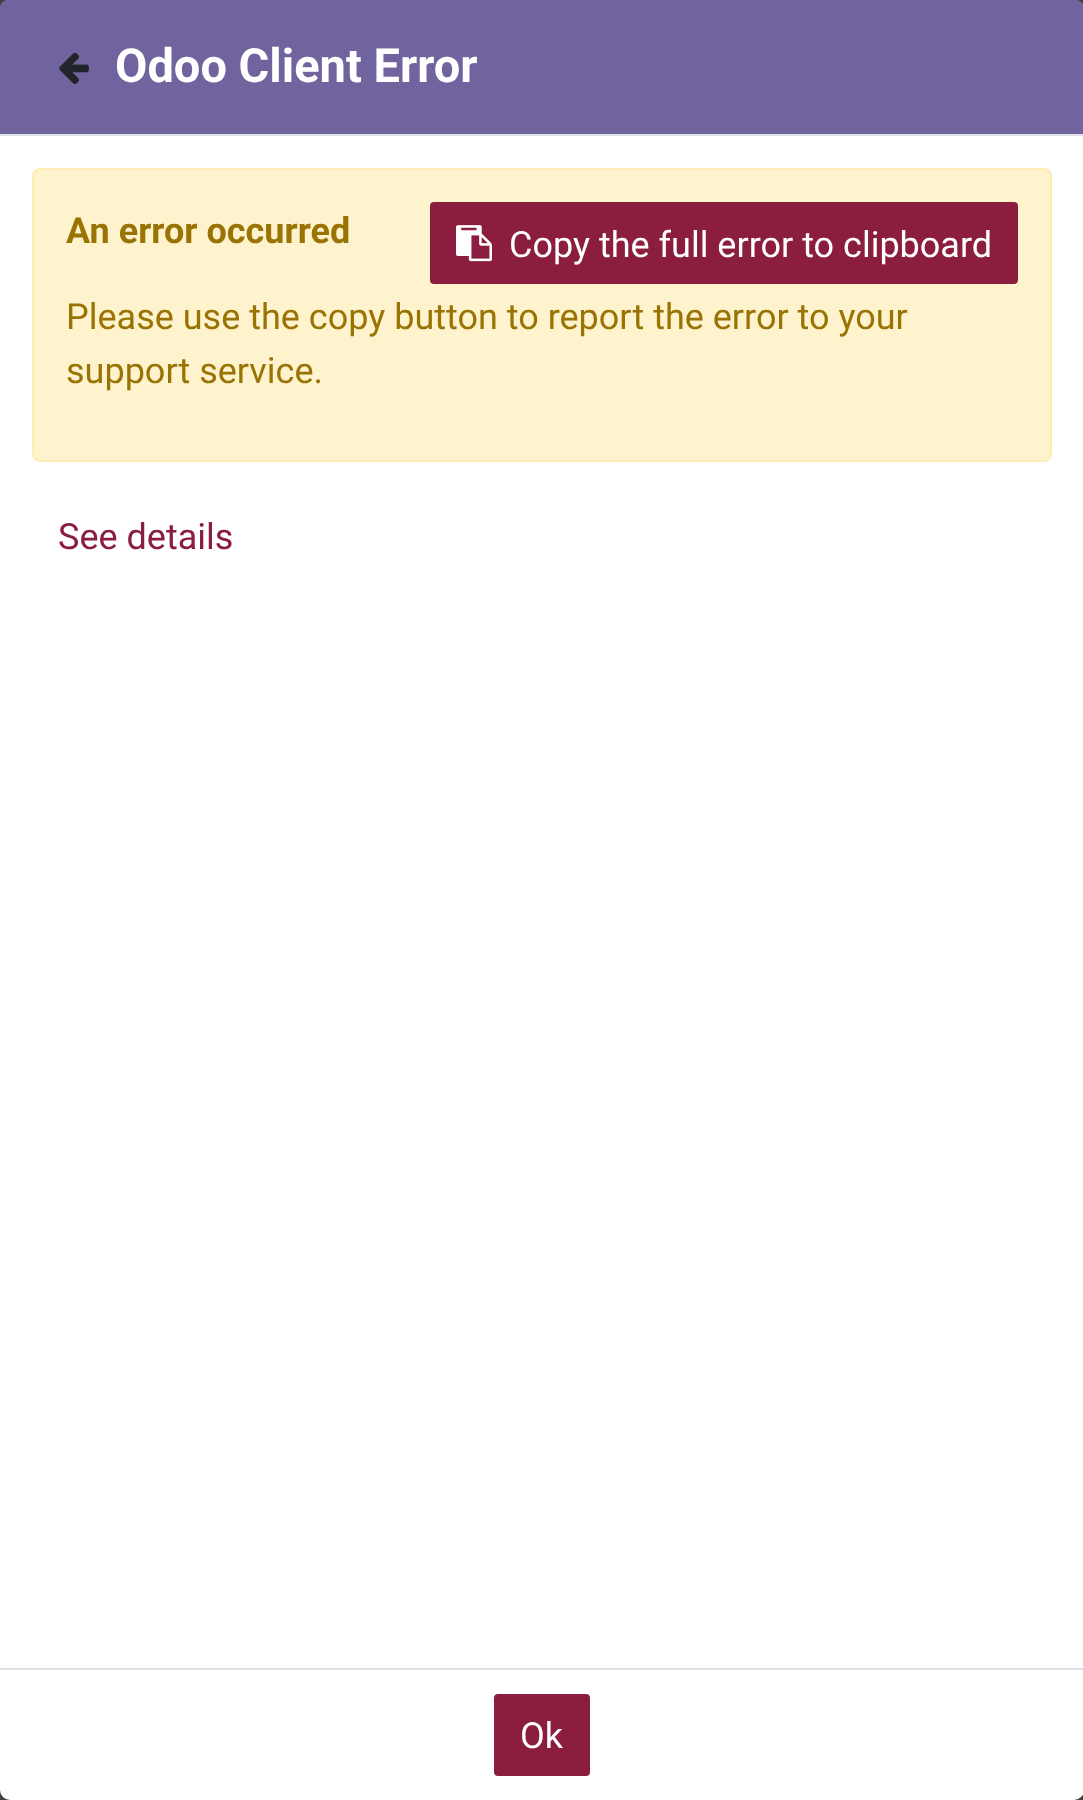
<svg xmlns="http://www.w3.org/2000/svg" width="1083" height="1800">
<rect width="100%" height="100%" fill="#404040"/>
<rect width="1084" height="1800" rx="10" fill="#fff"/>
<path d="M8 0h1068c4.5 0 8 3.5 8 8v128h-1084v-128c0-4.5 3.5-8 8-8z" fill="#71639e"/>
<rect y="134" width="1083" height="2" fill="#dee2e6"/>
<image x="59" y="52" width="30" height="32" href="media/1.png"/>
<text x="115" y="82" style="font-family:Roboto;font-size:47px;font-weight:bold;fill:#fff">Odoo Client Error</text>
<rect x="33" y="169" width="1018" height="292" rx="7" fill="#fff3cd" stroke="#ffecb5" stroke-width="2"/>
<text x="66" y="243" style="font-family:Roboto;font-size:36px;font-weight:bold;fill:#997404">An error occurred</text>
<rect x="431" y="203" width="586" height="80" rx="3" fill="#8b1e3f" stroke="#8b1e3f" stroke-width="2"/>
<image x="456" y="225" width="36" height="37" href="media/2.png"/>
<text x="509" y="257" style="font-family:Roboto;font-size:36px;fill:#fff">Copy the full error to clipboard</text>
<text x="66" y="329" style="font-family:Roboto;font-size:36px;fill:#997404">Please use the copy button to report the error to your</text>
<text x="66" y="383" style="font-family:Roboto;font-size:36px;fill:#997404">support service.</text>
<text x="58" y="549" style="font-family:Roboto;font-size:36px;fill:#8b1e3f">See details</text>
<rect y="1668" width="1083" height="2" fill="#dee2e6"/>
<rect x="495" y="1695" width="94" height="80" rx="3" fill="#8b1e3f" stroke="#8b1e3f" stroke-width="2"/>
<text x="520" y="1748" style="font-family:Roboto;font-size:36px;fill:#fff">Ok</text>
</svg>
